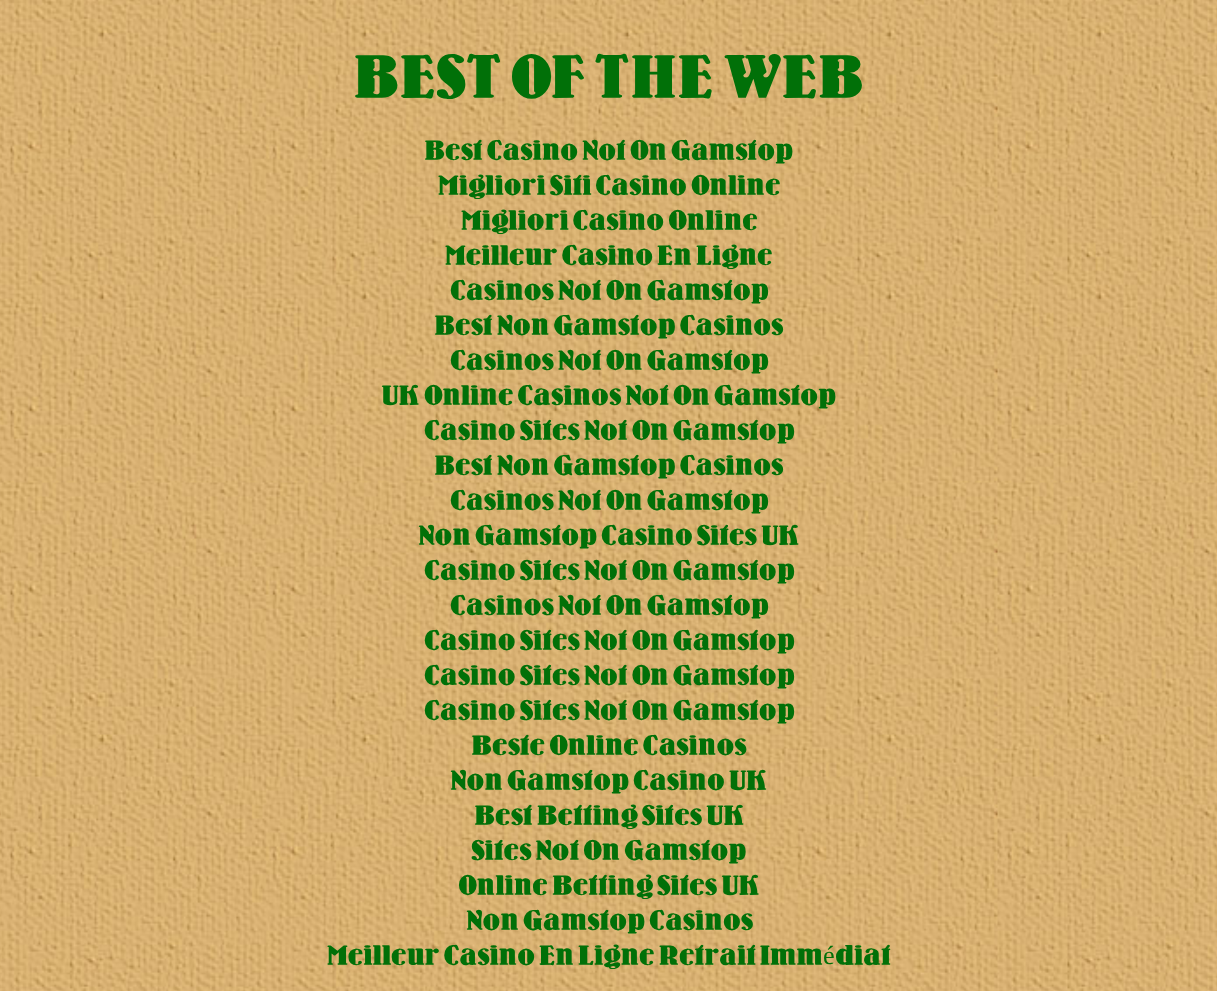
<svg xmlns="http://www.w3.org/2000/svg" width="1217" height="991">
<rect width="100%" height="100%" fill="#fff"/>
<image x="0" y="0" width="1217" height="991" href="media/1.png"/>
<text x="353" y="96" style="font-family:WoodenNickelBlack;font-size:57.75px;font-weight:900;fill:#017008">BEST OF THE WEB</text>
<text x="424" y="159" style="font-family:WoodenNickelBlack;font-size:26.25px;font-weight:900;fill:#017008">Best Casino Not On Gamstop</text>
<text x="438" y="194" style="font-family:WoodenNickelBlack;font-size:26.25px;font-weight:900;fill:#017008">Migliori Siti Casino Online</text>
<text x="461" y="229" style="font-family:WoodenNickelBlack;font-size:26.25px;font-weight:900;fill:#017008">Migliori Casino Online</text>
<text x="445" y="264" style="font-family:WoodenNickelBlack;font-size:26.25px;font-weight:900;fill:#017008">Meilleur Casino En Ligne</text>
<text x="450" y="299" style="font-family:WoodenNickelBlack;font-size:26.25px;font-weight:900;fill:#017008">Casinos Not On Gamstop</text>
<text x="434" y="334" style="font-family:WoodenNickelBlack;font-size:26.25px;font-weight:900;fill:#017008">Best Non Gamstop Casinos</text>
<text x="450" y="369" style="font-family:WoodenNickelBlack;font-size:26.25px;font-weight:900;fill:#017008">Casinos Not On Gamstop</text>
<text x="381" y="404" style="font-family:WoodenNickelBlack;font-size:26.25px;font-weight:900;fill:#017008">UK Online Casinos Not On Gamstop</text>
<text x="424" y="439" style="font-family:WoodenNickelBlack;font-size:26.25px;font-weight:900;fill:#017008">Casino Sites Not On Gamstop</text>
<text x="434" y="474" style="font-family:WoodenNickelBlack;font-size:26.25px;font-weight:900;fill:#017008">Best Non Gamstop Casinos</text>
<text x="450" y="509" style="font-family:WoodenNickelBlack;font-size:26.25px;font-weight:900;fill:#017008">Casinos Not On Gamstop</text>
<text x="418" y="544" style="font-family:WoodenNickelBlack;font-size:26.25px;font-weight:900;fill:#017008">Non Gamstop Casino Sites UK</text>
<text x="424" y="579" style="font-family:WoodenNickelBlack;font-size:26.25px;font-weight:900;fill:#017008">Casino Sites Not On Gamstop</text>
<text x="450" y="614" style="font-family:WoodenNickelBlack;font-size:26.25px;font-weight:900;fill:#017008">Casinos Not On Gamstop</text>
<text x="424" y="649" style="font-family:WoodenNickelBlack;font-size:26.25px;font-weight:900;fill:#017008">Casino Sites Not On Gamstop</text>
<text x="424" y="684" style="font-family:WoodenNickelBlack;font-size:26.25px;font-weight:900;fill:#017008">Casino Sites Not On Gamstop</text>
<text x="424" y="719" style="font-family:WoodenNickelBlack;font-size:26.25px;font-weight:900;fill:#017008">Casino Sites Not On Gamstop</text>
<text x="471" y="754" style="font-family:WoodenNickelBlack;font-size:26.25px;font-weight:900;fill:#017008">Beste Online Casinos</text>
<text x="450" y="789" style="font-family:WoodenNickelBlack;font-size:26.25px;font-weight:900;fill:#017008">Non Gamstop Casino UK</text>
<text x="474" y="824" style="font-family:WoodenNickelBlack;font-size:26.25px;font-weight:900;fill:#017008">Best Betting Sites UK</text>
<text x="471" y="859" style="font-family:WoodenNickelBlack;font-size:26.25px;font-weight:900;fill:#017008">Sites Not On Gamstop</text>
<text x="458" y="894" style="font-family:WoodenNickelBlack;font-size:26.25px;font-weight:900;fill:#017008">Online Betting Sites UK</text>
<text x="466" y="929" style="font-family:WoodenNickelBlack;font-size:26.25px;font-weight:900;fill:#017008">Non Gamstop Casinos</text>
<text x="327" y="964" style="font-family:WoodenNickelBlack;font-size:26.25px;font-weight:900;fill:#017008">Meilleur Casino En Ligne Retrait Imm</text>
<text x="823" y="964" style="font-family:Liberation Serif;font-size:26.25px;fill:#017008">é</text>
<text x="835" y="964" style="font-family:WoodenNickelBlack;font-size:26.25px;font-weight:900;fill:#017008">diat</text>
</svg>
